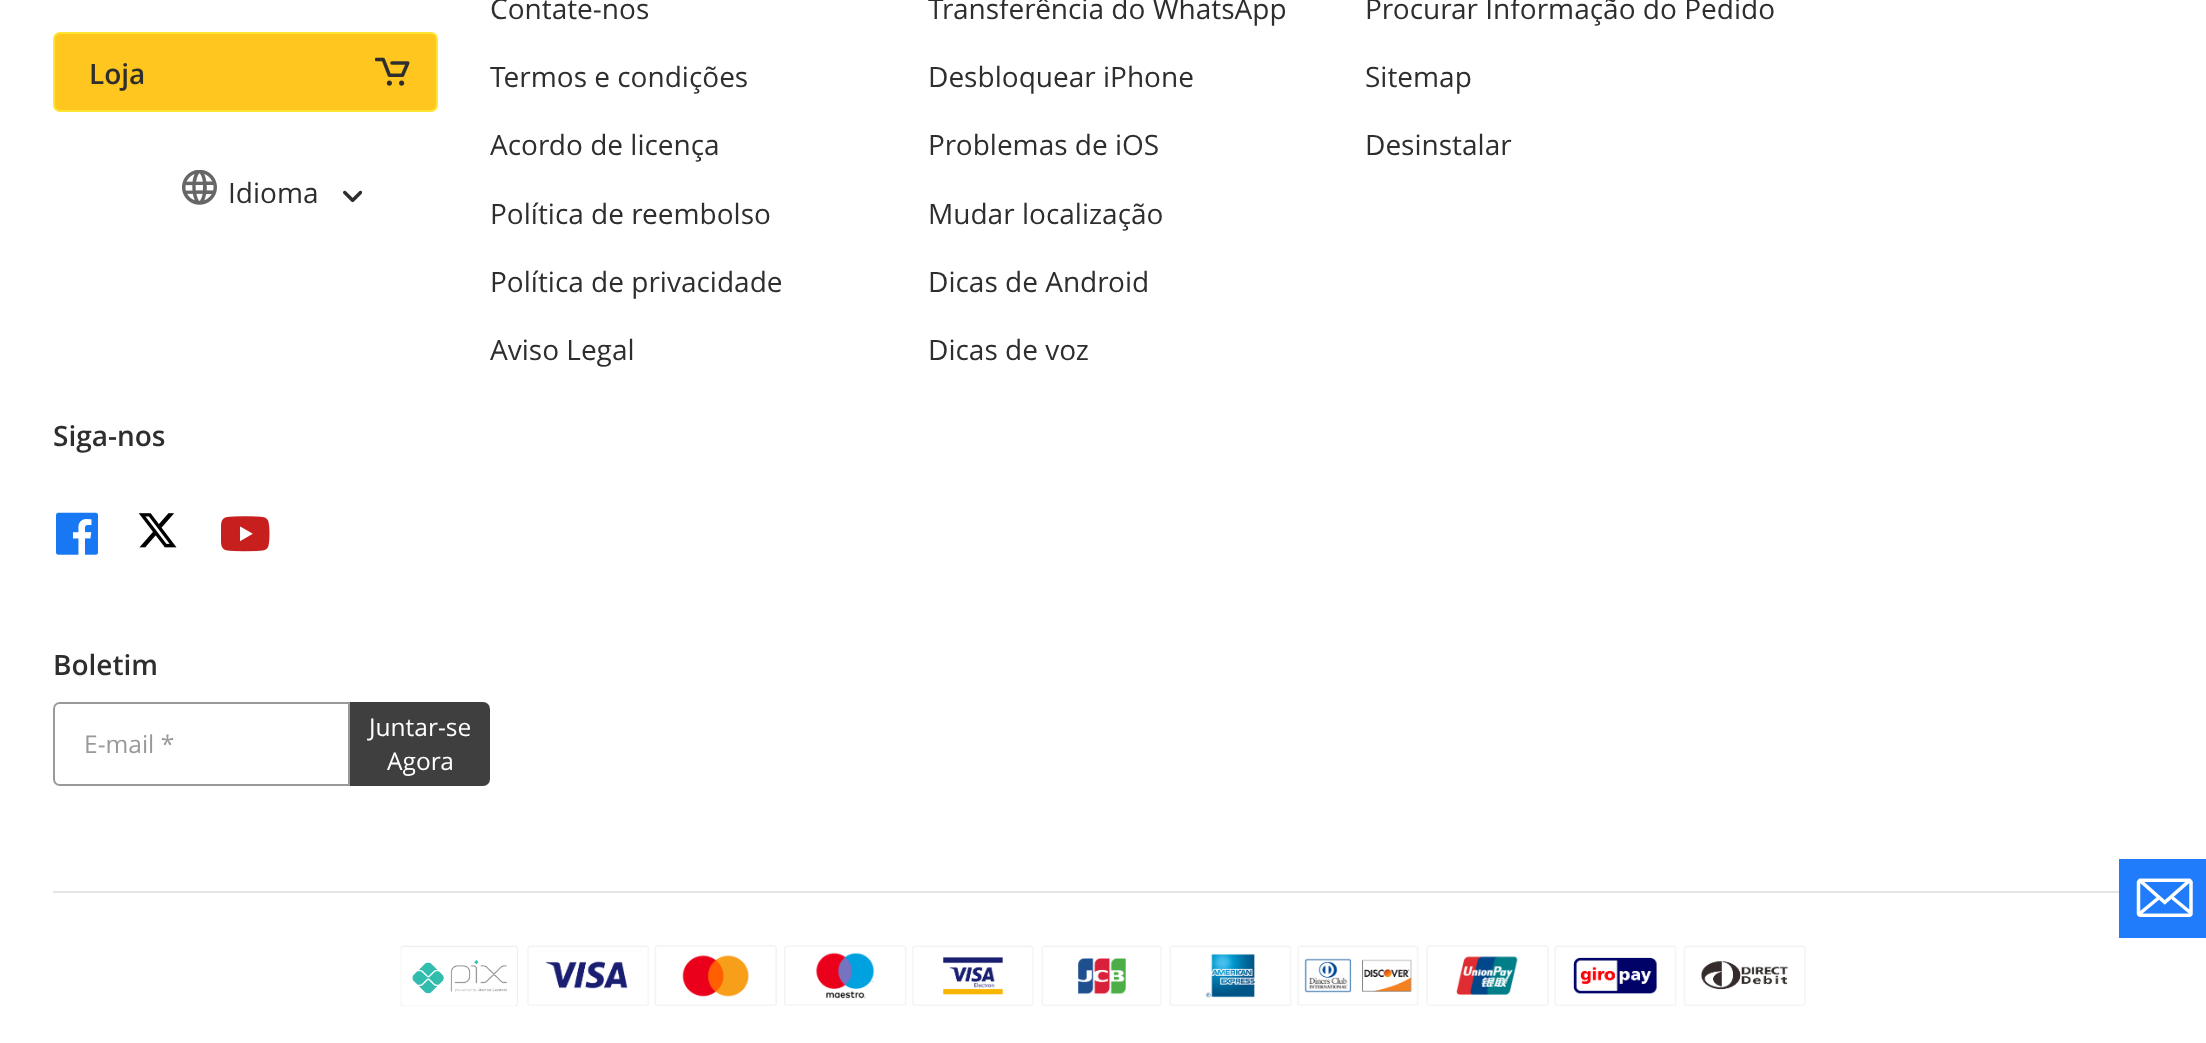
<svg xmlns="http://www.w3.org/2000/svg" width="2206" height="1043">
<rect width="100%" height="100%" fill="#fff"/>
<rect x="54" y="33" width="383" height="78" rx="6" fill="#ffc61f" stroke="#ffe432" stroke-width="2"/>
<text x="89" y="84" style="font-family:Open Sans;font-size:28px;font-weight:600;fill:#2e2e2e">Loja</text>
<image x="375" y="57" width="35" height="29" href="media/1.png"/>
<image x="182" y="170" width="35" height="35" href="media/2.png"/>
<text x="228" y="203" style="font-family:Open Sans;font-size:28px;fill:#2e2e2e">Idioma</text>
<image x="343" y="190" width="19" height="13" href="media/3.png"/>
<text x="490" y="19" style="font-family:Open Sans;font-size:28px;fill:#2e2e2e">Contate-nos</text>
<text x="490" y="87" style="font-family:Open Sans;font-size:28px;fill:#2e2e2e">Termos e condições</text>
<text x="490" y="155" style="font-family:Open Sans;font-size:28px;fill:#2e2e2e">Acordo de licença</text>
<text x="490" y="224" style="font-family:Open Sans;font-size:28px;fill:#2e2e2e">Política de reembolso</text>
<text x="490" y="292" style="font-family:Open Sans;font-size:28px;fill:#2e2e2e">Política de privacidade</text>
<text x="490" y="360" style="font-family:Open Sans;font-size:28px;fill:#2e2e2e">Aviso Legal</text>
<text x="928" y="19" style="font-family:Open Sans;font-size:28px;fill:#2e2e2e">Transferência do WhatsApp</text>
<text x="928" y="87" style="font-family:Open Sans;font-size:28px;fill:#2e2e2e">Desbloquear iPhone</text>
<text x="928" y="155" style="font-family:Open Sans;font-size:28px;fill:#2e2e2e">Problemas de iOS</text>
<text x="928" y="224" style="font-family:Open Sans;font-size:28px;fill:#2e2e2e">Mudar localização</text>
<text x="928" y="292" style="font-family:Open Sans;font-size:28px;fill:#2e2e2e">Dicas de Android</text>
<text x="928" y="360" style="font-family:Open Sans;font-size:28px;fill:#2e2e2e">Dicas de voz</text>
<text x="1365" y="19" style="font-family:Open Sans;font-size:28px;fill:#2e2e2e">Procurar Informação do Pedido</text>
<text x="1365" y="87" style="font-family:Open Sans;font-size:28px;fill:#2e2e2e">Sitemap</text>
<text x="1365" y="155" style="font-family:Open Sans;font-size:28px;fill:#2e2e2e">Desinstalar</text>
<text x="53" y="446" style="font-family:Open Sans;font-size:28px;font-weight:600;fill:#2e2e2e">Siga-nos</text>
<image x="56" y="512" width="42" height="43" href="media/4.png"/>
<image x="138" y="513" width="39" height="35" href="media/5.png"/>
<image x="221" y="516" width="49" height="36" href="media/6.png"/>
<text x="53" y="675" style="font-family:Open Sans;font-size:28px;font-weight:600;fill:#2e2e2e">Boletim</text>
<path d="M60 703h289v82h-289c-3.5 0-6-2.5-6-6v-70c0-3.5 2.5-6 6-6z" fill="none" stroke="#999" stroke-width="2"/>
<text x="84" y="753" style="font-family:Open Sans;font-size:24.5px;fill:#999">E-mail *</text>
<path d="M351 703h132c3.5 0 6 2.5 6 6v70c0 3.5-2.5 6-6 6h-132z" fill="#3f3f3f" stroke="#3f3f3f" stroke-width="2"/>
<text x="369" y="736" style="font-family:Open Sans;font-size:24.5px;fill:#fff">Juntar-se</text>
<text x="387" y="770" style="font-family:Open Sans;font-size:24.5px;fill:#fff">Agora</text>
<rect x="53" y="891" width="2066" height="2" fill="#e3e5e9"/>
<image x="400" y="945" width="118" height="62" href="media/7.png"/>
<image x="527" y="945" width="122" height="61" href="media/8.png"/>
<image x="654" y="945" width="123" height="61" href="media/9.png"/>
<image x="784" y="945" width="123" height="61" href="media/10.png"/>
<image x="912" y="945" width="122" height="61" href="media/11.png"/>
<image x="1041" y="945" width="121" height="61" href="media/12.png"/>
<image x="1169" y="945" width="123" height="61" href="media/13.png"/>
<image x="1297" y="945" width="122" height="61" href="media/14.png"/>
<image x="1426" y="945" width="123" height="61" href="media/15.png"/>
<image x="1554" y="945" width="123" height="61" href="media/16.png"/>
<image x="1683" y="945" width="123" height="61" href="media/17.png"/>
<image x="2119" y="859" width="87" height="79" href="media/18.png"/>
</svg>
